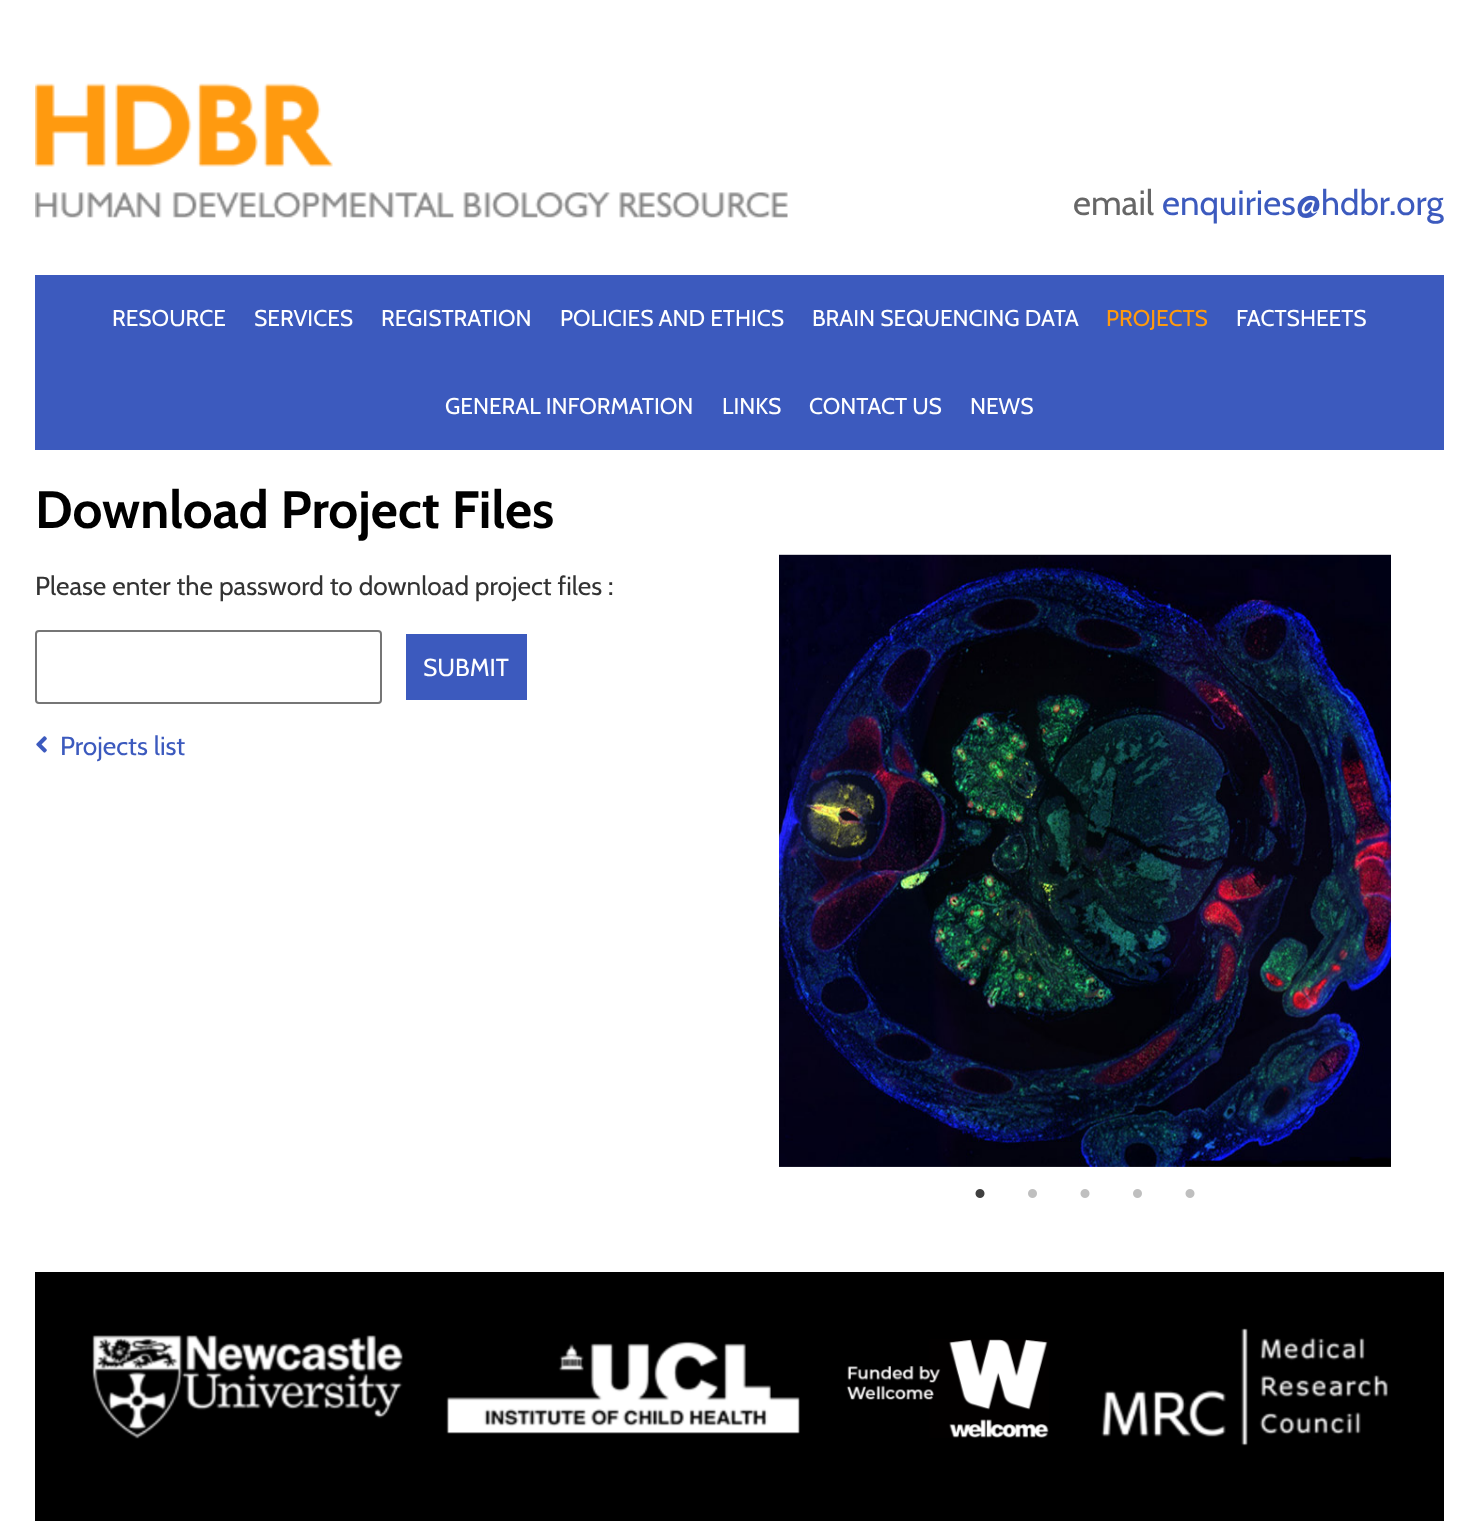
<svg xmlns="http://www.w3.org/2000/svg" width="1478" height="1521">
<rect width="100%" height="100%" fill="#fff"/>
<image x="35" y="83" width="753" height="135" href="media/1.png"/>
<text x="1073" y="215" style="font-family:Cabin;font-size:35px;fill:#666">email</text>
<text x="1162" y="215" style="font-family:Cabin;font-size:35px;fill:#3c5abe">enquiries@hdbr.org</text>
<rect x="35" y="275" width="1409" height="175" fill="#3c5abe"/>
<text x="112" y="326" style="font-family:Cabin;font-size:22.75px;fill:#fff">RESOURCE</text>
<text x="254" y="326" style="font-family:Cabin;font-size:22.75px;fill:#fff">SERVICES</text>
<text x="381" y="326" style="font-family:Cabin;font-size:22.75px;fill:#fff">REGISTRATION</text>
<text x="560" y="326" style="font-family:Cabin;font-size:22.75px;fill:#fff">POLICIES AND ETHICS</text>
<text x="812" y="326" style="font-family:Cabin;font-size:22.75px;fill:#fff">BRAIN SEQUENCING DATA</text>
<text x="1106" y="326" style="font-family:Cabin;font-size:22.75px;fill:#ff9a0e">PROJECTS</text>
<text x="1236" y="326" style="font-family:Cabin;font-size:22.75px;fill:#fff">FACTSHEETS</text>
<text x="445" y="414" style="font-family:Cabin;font-size:22.75px;fill:#fff">GENERAL INFORMATION</text>
<text x="722" y="414" style="font-family:Cabin;font-size:22.75px;fill:#fff">LINKS</text>
<text x="809" y="414" style="font-family:Cabin;font-size:22.75px;fill:#fff">CONTACT US</text>
<text x="970" y="414" style="font-family:Cabin;font-size:22.75px;fill:#fff">NEWS</text>
<text x="35" y="528" style="font-family:Cabin;font-size:52.5px;font-weight:bold;fill:#000">Download Project Files</text>
<text x="35" y="595" style="font-family:Cabin;font-size:26.25px;fill:#333">Please enter the password to download project files :</text>
<rect x="36" y="631" width="345" height="72" rx="3" fill="none" stroke="#767676" stroke-width="2"/>
<rect x="406" y="634" width="121" height="66" fill="#3c5abe"/>
<text x="423" y="676" style="font-family:Cabin;font-size:24.5px;fill:#fff">SUBMIT</text>
<image x="36" y="736" width="11" height="17" href="media/2.png"/>
<text x="60" y="755" style="font-family:Cabin;font-size:26.25px;fill:#3c5abe">Projects list</text>
<image x="779" y="554" width="612" height="613" href="media/3.png"/>
<image x="975" y="1189" width="10" height="9" href="media/4.png"/>
<image x="1028" y="1189" width="9" height="9" href="media/5.png"/>
<image x="1080" y="1189" width="10" height="9" href="media/6.png"/>
<image x="1133" y="1189" width="9" height="9" href="media/5.png"/>
<image x="1185" y="1189" width="10" height="9" href="media/6.png"/>
<rect x="35" y="1272" width="1409" height="249" fill="#000"/>
<image x="92" y="1335" width="311" height="104" href="media/7.png"/>
<image x="446" y="1341" width="354" height="93" href="media/8.png"/>
<image x="846" y="1339" width="203" height="99" href="media/9.png"/>
<image x="1101" y="1328" width="287" height="118" href="media/10.png"/>
</svg>
